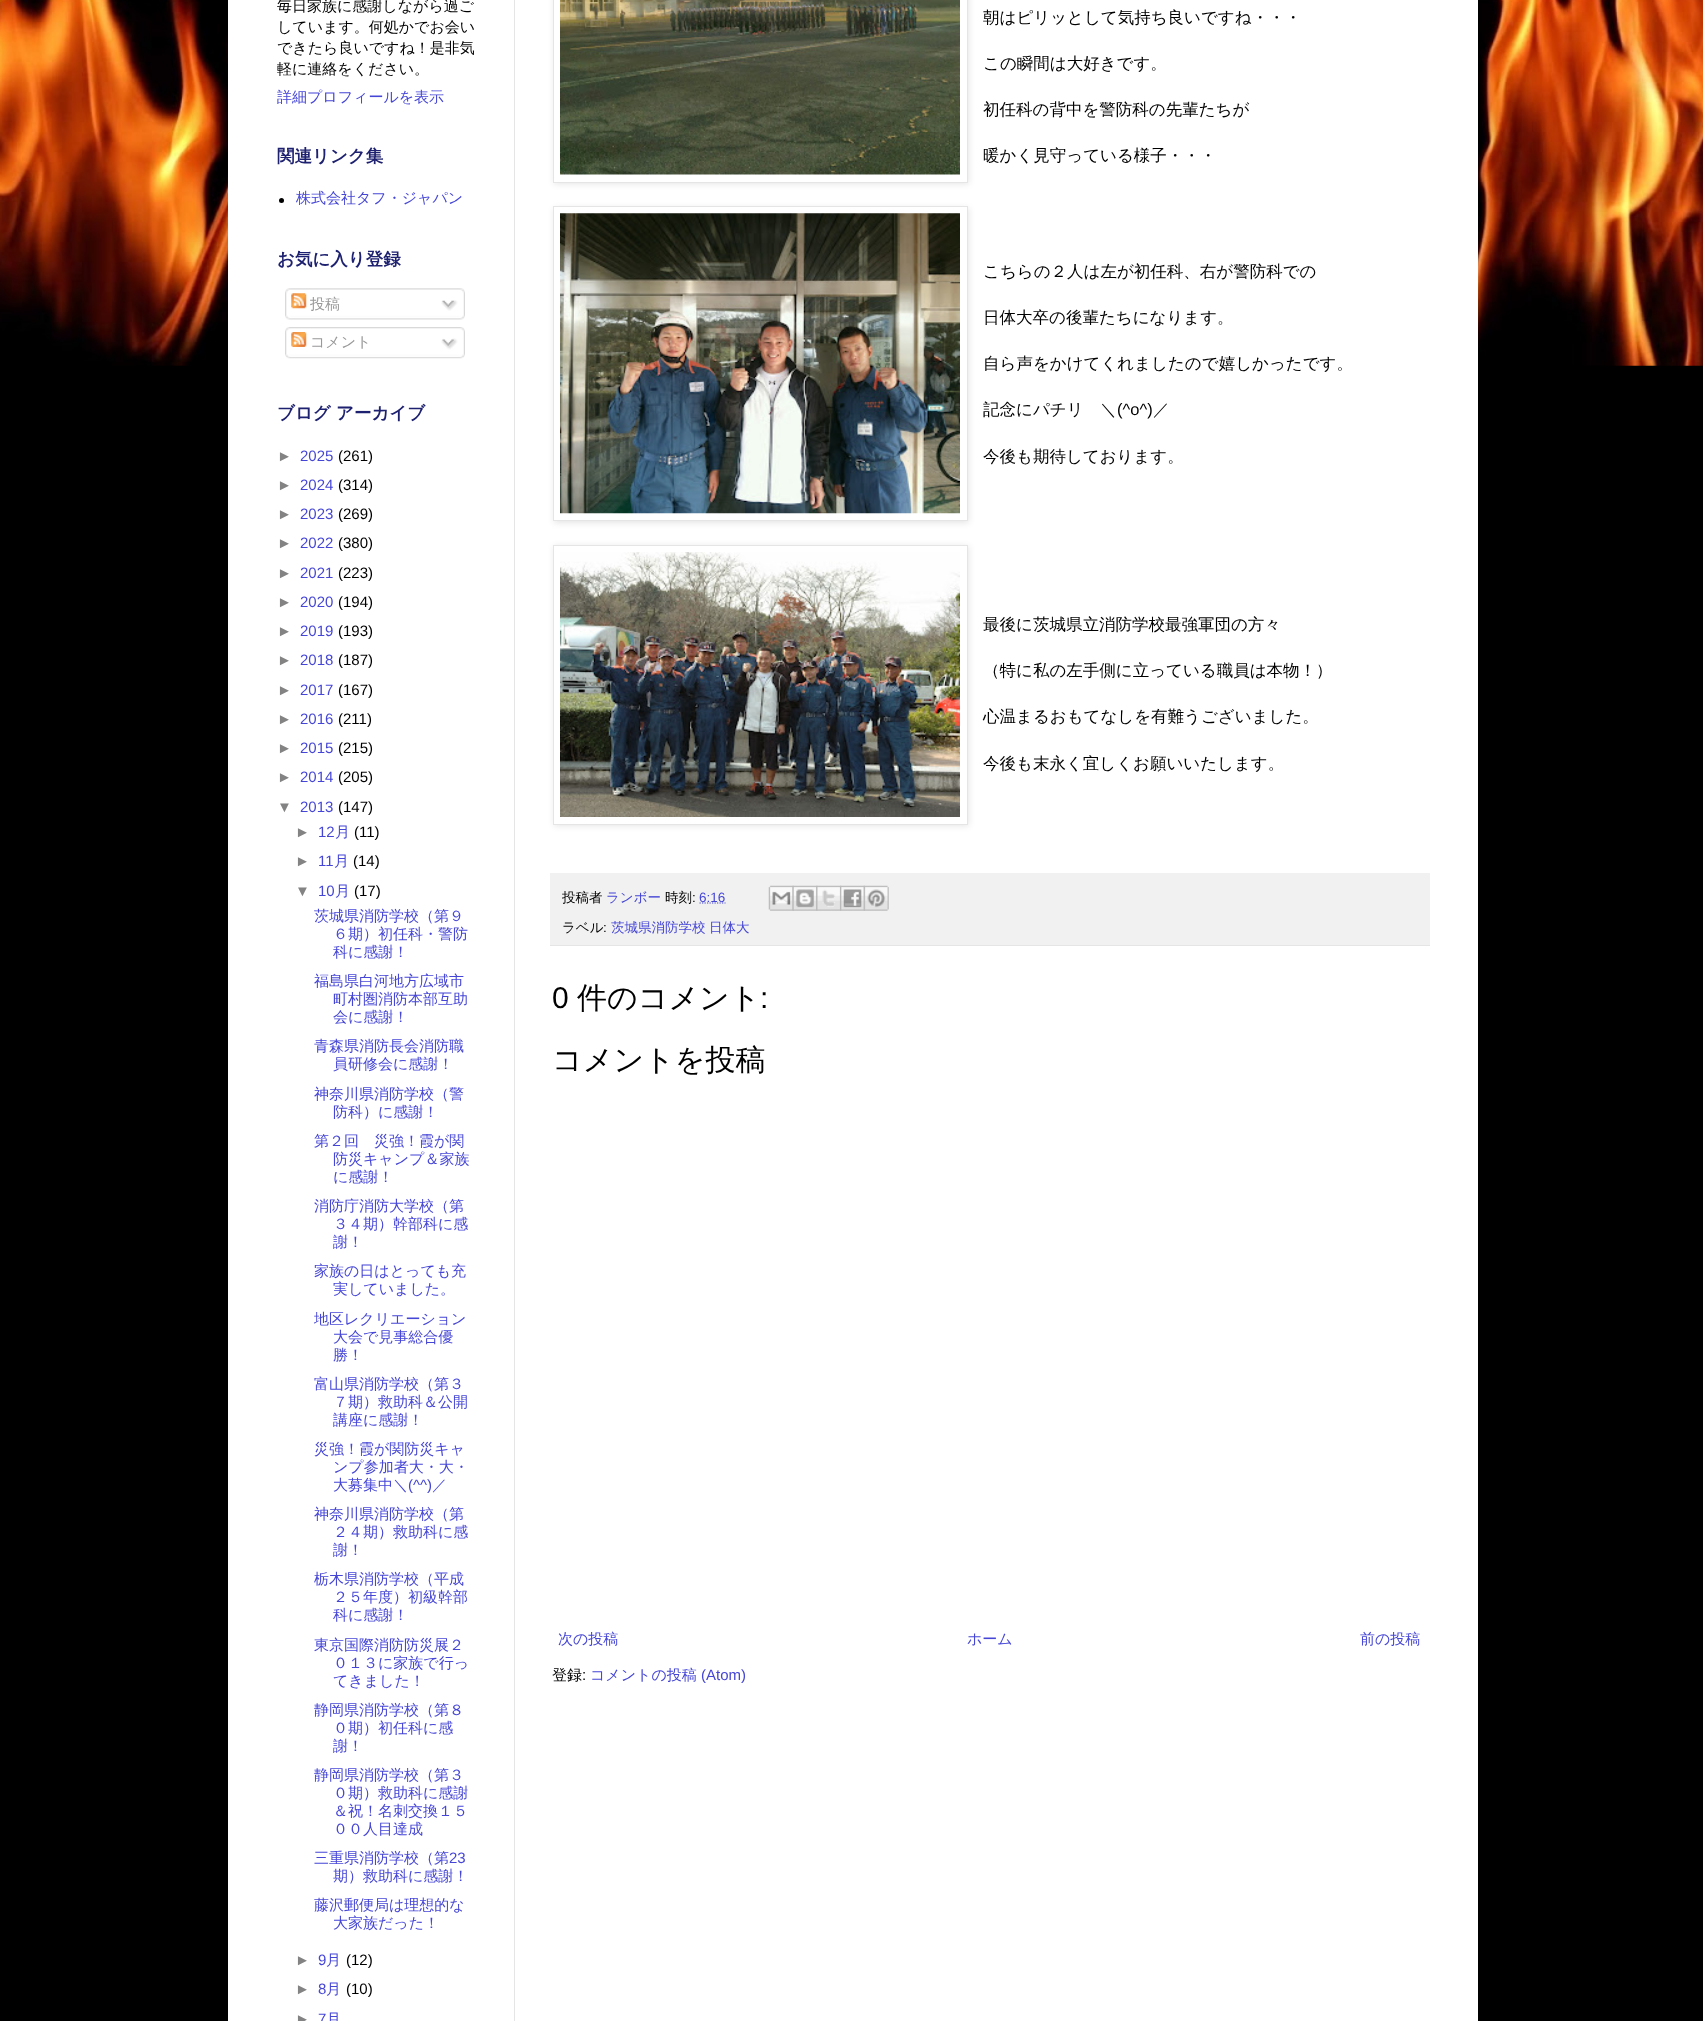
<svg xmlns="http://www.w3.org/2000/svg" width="1703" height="2021">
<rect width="100%" height="100%" fill="#000"/>
<image x="0" y="0" width="1703" height="366" href="media/1.png"/>
<rect x="228" y="-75" width="1250" height="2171" fill="#00000026" filter="blur(25px)"/>
<rect x="228" width="1250" height="2021" fill="#fff"/>
<text x="277" y="11" style="font-family:WenQuanYi Zen Hei;font-size:15px;font-weight:500;fill:#000">毎日家族に感謝しながら過ご</text>
<text x="277" y="32" style="font-family:WenQuanYi Zen Hei;font-size:15px;font-weight:500;fill:#000">しています。何処かでお会い</text>
<text x="277" y="53" style="font-family:WenQuanYi Zen Hei;font-size:15px;font-weight:500;fill:#000">できたら良いですね！是非気</text>
<text x="277" y="74" style="font-family:WenQuanYi Zen Hei;font-size:15px;font-weight:500;fill:#000">軽に連絡をください。</text>
<text x="277" y="102" style="font-family:WenQuanYi Zen Hei;font-size:15px;font-weight:500;fill:#4646d6">詳細プロフィールを表示</text>
<text x="277" y="162" style="font-family:WenQuanYi Zen Hei;font-size:17.5px;font-weight:bold;fill:#1e216f">関連リンク集</text>
<circle cx="281.5" cy="200.5" r="2.5" fill="#000"/>
<text x="296" y="203" style="font-family:WenQuanYi Zen Hei;font-size:15px;font-weight:500;fill:#4646d6">株式会社タフ・ジャパン</text>
<text x="277" y="265" style="font-family:WenQuanYi Zen Hei;font-size:17.5px;font-weight:bold;fill:#1e216f">お気に入り登録</text>
<image x="285" y="288" width="180" height="28" href="media/2.png"/>
<image x="291" y="293" width="16" height="16" href="media/3.png"/>
<text x="310" y="309" style="font-family:WenQuanYi Zen Hei;font-size:15px;font-weight:500;fill:#999">投稿</text>
<image x="441" y="300" width="17" height="11" href="media/4.png"/>
<image x="285" y="315" width="180" height="5" href="media/5.png"/>
<image x="285" y="327" width="180" height="28" href="media/6.png"/>
<image x="291" y="332" width="16" height="15" href="media/7.png"/>
<text x="310" y="347" style="font-family:WenQuanYi Zen Hei;font-size:15px;font-weight:500;fill:#999">コメント</text>
<image x="441" y="338" width="17" height="12" href="media/8.png"/>
<image x="285" y="354" width="180" height="5" href="media/9.png"/>
<text x="277" y="419" style="font-family:WenQuanYi Zen Hei;font-size:17.5px;font-weight:bold;fill:#1e216f">ブログ アーカイブ</text>
<text x="277" y="461" style="font-family:Liberation Sans;font-size:15px;fill:#838383">►</text>
<text x="300" y="461" style="font-family:Liberation Sans;font-size:15px;fill:#4646d6">2025</text>
<text x="338" y="461" style="font-family:Liberation Sans;font-size:15px;fill:#000">(261)</text>
<text x="277" y="490" style="font-family:Liberation Sans;font-size:15px;fill:#838383">►</text>
<text x="300" y="490" style="font-family:Liberation Sans;font-size:15px;fill:#4646d6">2024</text>
<text x="338" y="490" style="font-family:Liberation Sans;font-size:15px;fill:#000">(314)</text>
<text x="277" y="519" style="font-family:Liberation Sans;font-size:15px;fill:#838383">►</text>
<text x="300" y="519" style="font-family:Liberation Sans;font-size:15px;fill:#4646d6">2023</text>
<text x="338" y="519" style="font-family:Liberation Sans;font-size:15px;fill:#000">(269)</text>
<text x="277" y="548" style="font-family:Liberation Sans;font-size:15px;fill:#838383">►</text>
<text x="300" y="548" style="font-family:Liberation Sans;font-size:15px;fill:#4646d6">2022</text>
<text x="338" y="548" style="font-family:Liberation Sans;font-size:15px;fill:#000">(380)</text>
<text x="277" y="578" style="font-family:Liberation Sans;font-size:15px;fill:#838383">►</text>
<text x="300" y="578" style="font-family:Liberation Sans;font-size:15px;fill:#4646d6">2021</text>
<text x="338" y="578" style="font-family:Liberation Sans;font-size:15px;fill:#000">(223)</text>
<text x="277" y="607" style="font-family:Liberation Sans;font-size:15px;fill:#838383">►</text>
<text x="300" y="607" style="font-family:Liberation Sans;font-size:15px;fill:#4646d6">2020</text>
<text x="338" y="607" style="font-family:Liberation Sans;font-size:15px;fill:#000">(194)</text>
<text x="277" y="636" style="font-family:Liberation Sans;font-size:15px;fill:#838383">►</text>
<text x="300" y="636" style="font-family:Liberation Sans;font-size:15px;fill:#4646d6">2019</text>
<text x="338" y="636" style="font-family:Liberation Sans;font-size:15px;fill:#000">(193)</text>
<text x="277" y="665" style="font-family:Liberation Sans;font-size:15px;fill:#838383">►</text>
<text x="300" y="665" style="font-family:Liberation Sans;font-size:15px;fill:#4646d6">2018</text>
<text x="338" y="665" style="font-family:Liberation Sans;font-size:15px;fill:#000">(187)</text>
<text x="277" y="695" style="font-family:Liberation Sans;font-size:15px;fill:#838383">►</text>
<text x="300" y="695" style="font-family:Liberation Sans;font-size:15px;fill:#4646d6">2017</text>
<text x="338" y="695" style="font-family:Liberation Sans;font-size:15px;fill:#000">(167)</text>
<text x="277" y="724" style="font-family:Liberation Sans;font-size:15px;fill:#838383">►</text>
<text x="300" y="724" style="font-family:Liberation Sans;font-size:15px;fill:#4646d6">2016</text>
<text x="338" y="724" style="font-family:Liberation Sans;font-size:15px;fill:#000">(211)</text>
<text x="277" y="753" style="font-family:Liberation Sans;font-size:15px;fill:#838383">►</text>
<text x="300" y="753" style="font-family:Liberation Sans;font-size:15px;fill:#4646d6">2015</text>
<text x="338" y="753" style="font-family:Liberation Sans;font-size:15px;fill:#000">(215)</text>
<text x="277" y="782" style="font-family:Liberation Sans;font-size:15px;fill:#838383">►</text>
<text x="300" y="782" style="font-family:Liberation Sans;font-size:15px;fill:#4646d6">2014</text>
<text x="338" y="782" style="font-family:Liberation Sans;font-size:15px;fill:#000">(205)</text>
<text x="277" y="812" style="font-family:Liberation Sans;font-size:15px;fill:#838383">▼</text>
<text x="300" y="812" style="font-family:Liberation Sans;font-size:15px;fill:#4646d6">2013</text>
<text x="338" y="812" style="font-family:Liberation Sans;font-size:15px;fill:#000">(147)</text>
<text x="295" y="837" style="font-family:Liberation Sans;font-size:15px;fill:#838383">►</text>
<text x="318" y="837" style="font-family:Liberation Sans;font-size:15px;fill:#4646d6">12</text>
<text x="335" y="837" style="font-family:WenQuanYi Zen Hei;font-size:15px;font-weight:500;fill:#4646d6">月</text>
<text x="354" y="837" style="font-family:Liberation Sans;font-size:15px;fill:#000">(11)</text>
<text x="295" y="866" style="font-family:Liberation Sans;font-size:15px;fill:#838383">►</text>
<text x="318" y="866" style="font-family:Liberation Sans;font-size:15px;fill:#4646d6">11</text>
<text x="334" y="866" style="font-family:WenQuanYi Zen Hei;font-size:15px;font-weight:500;fill:#4646d6">月</text>
<text x="353" y="866" style="font-family:Liberation Sans;font-size:15px;fill:#000">(14)</text>
<text x="295" y="896" style="font-family:Liberation Sans;font-size:15px;fill:#838383">▼</text>
<text x="318" y="896" style="font-family:Liberation Sans;font-size:15px;fill:#4646d6">10</text>
<text x="335" y="896" style="font-family:WenQuanYi Zen Hei;font-size:15px;font-weight:500;fill:#4646d6">月</text>
<text x="354" y="896" style="font-family:Liberation Sans;font-size:15px;fill:#000">(17)</text>
<text x="314" y="921" style="font-family:WenQuanYi Zen Hei;font-size:15px;font-weight:500;fill:#4646d6">茨城県消防学校（第９</text>
<text x="333" y="939" style="font-family:WenQuanYi Zen Hei;font-size:15px;font-weight:500;fill:#4646d6">６期）初任科・警防</text>
<text x="333" y="957" style="font-family:WenQuanYi Zen Hei;font-size:15px;font-weight:500;fill:#4646d6">科に感謝！</text>
<text x="314" y="986" style="font-family:WenQuanYi Zen Hei;font-size:15px;font-weight:500;fill:#4646d6">福島県白河地方広域市</text>
<text x="333" y="1004" style="font-family:WenQuanYi Zen Hei;font-size:15px;font-weight:500;fill:#4646d6">町村圏消防本部互助</text>
<text x="333" y="1022" style="font-family:WenQuanYi Zen Hei;font-size:15px;font-weight:500;fill:#4646d6">会に感謝！</text>
<text x="314" y="1051" style="font-family:WenQuanYi Zen Hei;font-size:15px;font-weight:500;fill:#4646d6">青森県消防長会消防職</text>
<text x="333" y="1069" style="font-family:WenQuanYi Zen Hei;font-size:15px;font-weight:500;fill:#4646d6">員研修会に感謝！</text>
<text x="314" y="1099" style="font-family:WenQuanYi Zen Hei;font-size:15px;font-weight:500;fill:#4646d6">神奈川県消防学校（警</text>
<text x="333" y="1117" style="font-family:WenQuanYi Zen Hei;font-size:15px;font-weight:500;fill:#4646d6">防科）に感謝！</text>
<text x="314" y="1146" style="font-family:WenQuanYi Zen Hei;font-size:15px;font-weight:500;fill:#4646d6">第２回　災強！霞が関</text>
<text x="333" y="1164" style="font-family:WenQuanYi Zen Hei;font-size:15px;font-weight:500;fill:#4646d6">防災キャンプ＆家族</text>
<text x="333" y="1182" style="font-family:WenQuanYi Zen Hei;font-size:15px;font-weight:500;fill:#4646d6">に感謝！</text>
<text x="314" y="1211" style="font-family:WenQuanYi Zen Hei;font-size:15px;font-weight:500;fill:#4646d6">消防庁消防大学校（第</text>
<text x="333" y="1229" style="font-family:WenQuanYi Zen Hei;font-size:15px;font-weight:500;fill:#4646d6">３４期）幹部科に感</text>
<text x="333" y="1247" style="font-family:WenQuanYi Zen Hei;font-size:15px;font-weight:500;fill:#4646d6">謝！</text>
<text x="314" y="1276" style="font-family:WenQuanYi Zen Hei;font-size:15px;font-weight:500;fill:#4646d6">家族の日はとっても充</text>
<text x="333" y="1294" style="font-family:WenQuanYi Zen Hei;font-size:15px;font-weight:500;fill:#4646d6">実していました。</text>
<text x="314" y="1324" style="font-family:WenQuanYi Zen Hei;font-size:15px;font-weight:500;fill:#4646d6">地区レクリエーション</text>
<text x="333" y="1342" style="font-family:WenQuanYi Zen Hei;font-size:15px;font-weight:500;fill:#4646d6">大会で見事総合優</text>
<text x="333" y="1360" style="font-family:WenQuanYi Zen Hei;font-size:15px;font-weight:500;fill:#4646d6">勝！</text>
<text x="314" y="1389" style="font-family:WenQuanYi Zen Hei;font-size:15px;font-weight:500;fill:#4646d6">富山県消防学校（第３</text>
<text x="333" y="1407" style="font-family:WenQuanYi Zen Hei;font-size:15px;font-weight:500;fill:#4646d6">７期）救助科＆公開</text>
<text x="333" y="1425" style="font-family:WenQuanYi Zen Hei;font-size:15px;font-weight:500;fill:#4646d6">講座に感謝！</text>
<text x="314" y="1454" style="font-family:WenQuanYi Zen Hei;font-size:15px;font-weight:500;fill:#4646d6">災強！霞が関防災キャ</text>
<text x="333" y="1472" style="font-family:WenQuanYi Zen Hei;font-size:15px;font-weight:500;fill:#4646d6">ンプ参加者大・大・</text>
<text x="333" y="1490" style="font-family:WenQuanYi Zen Hei;font-size:15px;font-weight:500;fill:#4646d6">大募集中＼</text>
<text x="408" y="1490" style="font-family:Liberation Sans;font-size:15px;fill:#4646d6">(^^)</text>
<text x="432" y="1490" style="font-family:WenQuanYi Zen Hei;font-size:15px;font-weight:500;fill:#4646d6">／</text>
<text x="314" y="1519" style="font-family:WenQuanYi Zen Hei;font-size:15px;font-weight:500;fill:#4646d6">神奈川県消防学校（第</text>
<text x="333" y="1537" style="font-family:WenQuanYi Zen Hei;font-size:15px;font-weight:500;fill:#4646d6">２４期）救助科に感</text>
<text x="333" y="1555" style="font-family:WenQuanYi Zen Hei;font-size:15px;font-weight:500;fill:#4646d6">謝！</text>
<text x="314" y="1584" style="font-family:WenQuanYi Zen Hei;font-size:15px;font-weight:500;fill:#4646d6">栃木県消防学校（平成</text>
<text x="333" y="1602" style="font-family:WenQuanYi Zen Hei;font-size:15px;font-weight:500;fill:#4646d6">２５年度）初級幹部</text>
<text x="333" y="1620" style="font-family:WenQuanYi Zen Hei;font-size:15px;font-weight:500;fill:#4646d6">科に感謝！</text>
<text x="314" y="1650" style="font-family:WenQuanYi Zen Hei;font-size:15px;font-weight:500;fill:#4646d6">東京国際消防防災展２</text>
<text x="333" y="1668" style="font-family:WenQuanYi Zen Hei;font-size:15px;font-weight:500;fill:#4646d6">０１３に家族で行っ</text>
<text x="333" y="1686" style="font-family:WenQuanYi Zen Hei;font-size:15px;font-weight:500;fill:#4646d6">てきました！</text>
<text x="314" y="1715" style="font-family:WenQuanYi Zen Hei;font-size:15px;font-weight:500;fill:#4646d6">静岡県消防学校（第８</text>
<text x="333" y="1733" style="font-family:WenQuanYi Zen Hei;font-size:15px;font-weight:500;fill:#4646d6">０期）初任科に感</text>
<text x="333" y="1751" style="font-family:WenQuanYi Zen Hei;font-size:15px;font-weight:500;fill:#4646d6">謝！</text>
<text x="314" y="1780" style="font-family:WenQuanYi Zen Hei;font-size:15px;font-weight:500;fill:#4646d6">静岡県消防学校（第３</text>
<text x="333" y="1798" style="font-family:WenQuanYi Zen Hei;font-size:15px;font-weight:500;fill:#4646d6">０期）救助科に感謝</text>
<text x="333" y="1816" style="font-family:WenQuanYi Zen Hei;font-size:15px;font-weight:500;fill:#4646d6">＆祝！名刺交換１５</text>
<text x="333" y="1834" style="font-family:WenQuanYi Zen Hei;font-size:15px;font-weight:500;fill:#4646d6">００人目達成</text>
<text x="314" y="1863" style="font-family:WenQuanYi Zen Hei;font-size:15px;font-weight:500;fill:#4646d6">三重県消防学校（第</text>
<text x="449" y="1863" style="font-family:Liberation Sans;font-size:15px;fill:#4646d6">23</text>
<text x="333" y="1881" style="font-family:WenQuanYi Zen Hei;font-size:15px;font-weight:500;fill:#4646d6">期）救助科に感謝！</text>
<text x="314" y="1910" style="font-family:WenQuanYi Zen Hei;font-size:15px;font-weight:500;fill:#4646d6">藤沢郵便局は理想的な</text>
<text x="333" y="1928" style="font-family:WenQuanYi Zen Hei;font-size:15px;font-weight:500;fill:#4646d6">大家族だった！</text>
<text x="295" y="1965" style="font-family:Liberation Sans;font-size:15px;fill:#838383">►</text>
<text x="318" y="1965" style="font-family:Liberation Sans;font-size:15px;fill:#4646d6">9</text>
<text x="326" y="1965" style="font-family:WenQuanYi Zen Hei;font-size:15px;font-weight:500;fill:#4646d6">月</text>
<text x="346" y="1965" style="font-family:Liberation Sans;font-size:15px;fill:#000">(12)</text>
<text x="295" y="1994" style="font-family:Liberation Sans;font-size:15px;fill:#838383">►</text>
<text x="318" y="1994" style="font-family:Liberation Sans;font-size:15px;fill:#4646d6">8</text>
<text x="326" y="1994" style="font-family:WenQuanYi Zen Hei;font-size:15px;font-weight:500;fill:#4646d6">月</text>
<text x="346" y="1994" style="font-family:Liberation Sans;font-size:15px;fill:#000">(10)</text>
<text x="295" y="2024" style="font-family:Liberation Sans;font-size:15px;fill:#838383">►</text>
<text x="318" y="2024" style="font-family:Liberation Sans;font-size:15px;fill:#4646d6">7</text>
<text x="326" y="2024" style="font-family:WenQuanYi Zen Hei;font-size:15px;font-weight:500;fill:#4646d6">月</text>
<rect x="554" y="-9" width="415" height="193" fill="#0000001a" filter="blur(3px)"/>
<rect x="553.5" y="-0.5" width="414" height="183" fill="#fff" stroke="#e5e5e5"/>
<image x="560" y="0" width="400" height="175" href="media/10.png"/>
<text x="983" y="23" style="font-family:WenQuanYi Zen Hei;font-size:16.5px;font-weight:500;fill:#000">朝はピリッとして気持ち良いですね・・・</text>
<text x="983" y="69" style="font-family:WenQuanYi Zen Hei;font-size:16.5px;font-weight:500;fill:#000">この瞬間は大好きです。</text>
<text x="983" y="115" style="font-family:WenQuanYi Zen Hei;font-size:16.5px;font-weight:500;fill:#000">初任科の背中を警防科の先輩たちが</text>
<text x="983" y="161" style="font-family:WenQuanYi Zen Hei;font-size:16.5px;font-weight:500;fill:#000">暖かく見守っている様子・・・</text>
<rect x="554" y="208" width="415" height="315" fill="#0000001a" filter="blur(3px)"/>
<rect x="553.5" y="206.5" width="414" height="314" fill="#fff" stroke="#e5e5e5"/>
<image x="560" y="213" width="400" height="301" href="media/11.png"/>
<text x="983" y="277" style="font-family:WenQuanYi Zen Hei;font-size:16.5px;font-weight:500;fill:#000">こちらの２人は左が初任科、右が警防科での</text>
<text x="983" y="323" style="font-family:WenQuanYi Zen Hei;font-size:16.5px;font-weight:500;fill:#000">日体大卒の後輩たちになります。</text>
<text x="983" y="369" style="font-family:WenQuanYi Zen Hei;font-size:16.5px;font-weight:500;fill:#000">自ら声をかけてくれましたので嬉しかったです。</text>
<text x="983" y="415" style="font-family:WenQuanYi Zen Hei;font-size:16.5px;font-weight:500;fill:#000">記念にパチリ　＼</text>
<text x="1117" y="415" style="font-family:Liberation Sans;font-size:16.5px;fill:#000">(^o^)</text>
<text x="1153" y="415" style="font-family:WenQuanYi Zen Hei;font-size:16.5px;font-weight:500;fill:#000">／</text>
<text x="983" y="462" style="font-family:WenQuanYi Zen Hei;font-size:16.5px;font-weight:500;fill:#000">今後も期待しております。</text>
<rect x="554" y="546" width="415" height="280" fill="#0000001a" filter="blur(3px)"/>
<rect x="553.5" y="545.5" width="414" height="279" fill="#fff" stroke="#e5e5e5"/>
<image x="560" y="552" width="400" height="265" href="media/12.png"/>
<text x="983" y="630" style="font-family:WenQuanYi Zen Hei;font-size:16.5px;font-weight:500;fill:#000">最後に茨城県立消防学校最強軍団の方々</text>
<text x="983" y="676" style="font-family:WenQuanYi Zen Hei;font-size:16.5px;font-weight:500;fill:#000">（特に私の左手側に立っている職員は本物！）</text>
<text x="983" y="722" style="font-family:WenQuanYi Zen Hei;font-size:16.5px;font-weight:500;fill:#000">心温まるおもてなしを有難うございました。</text>
<text x="983" y="769" style="font-family:WenQuanYi Zen Hei;font-size:16.5px;font-weight:500;fill:#000">今後も末永く宜しくお願いいたします。</text>
<rect x="550" y="873" width="880" height="72" fill="#f1f1f1"/>
<rect x="550" y="945" width="880" height="1" fill="#e5e5e5"/>
<text x="562" y="902" style="font-family:WenQuanYi Zen Hei;font-size:13.5px;font-weight:500;fill:#000">投稿者</text>
<text x="606" y="902" style="font-family:WenQuanYi Zen Hei;font-size:13.5px;font-weight:500;fill:#4646d6">ランボー</text>
<text x="665" y="902" style="font-family:WenQuanYi Zen Hei;font-size:13.5px;font-weight:500;fill:#000">時刻</text>
<text x="692" y="902" style="font-family:Liberation Sans;font-size:13.5px;fill:#000">:</text>
<path d="M699.5 903h26" fill="none" stroke="#4646d6" stroke-width="1.2" stroke-dasharray="1.25 1.25"/>
<text x="699" y="902" style="font-family:Liberation Sans;font-size:13.5px;fill:#4646d6">6:16</text>
<image x="768" y="885" width="26" height="26" href="media/13.png"/>
<image x="792" y="885" width="26" height="26" href="media/14.png"/>
<image x="816" y="885" width="26" height="26" href="media/15.png"/>
<image x="840" y="885" width="25" height="26" href="media/16.png"/>
<image x="863" y="885" width="26" height="26" href="media/17.png"/>
<text x="562" y="932" style="font-family:WenQuanYi Zen Hei;font-size:13.5px;font-weight:500;fill:#000">ラベル</text>
<text x="603" y="932" style="font-family:Liberation Sans;font-size:13.5px;fill:#000">:</text>
<text x="611" y="932" style="font-family:WenQuanYi Zen Hei;font-size:13.5px;font-weight:500;fill:#4646d6">茨城県消防学校</text>
<text x="709" y="932" style="font-family:WenQuanYi Zen Hei;font-size:13.5px;font-weight:500;fill:#4646d6">日体大</text>
<text x="552" y="1008" style="font-family:Liberation Sans;font-size:30px;fill:#000">0</text>
<text x="577" y="1008" style="font-family:WenQuanYi Zen Hei;font-size:30px;font-weight:500;fill:#000">件のコメント</text>
<text x="760" y="1008" style="font-family:Liberation Sans;font-size:30px;fill:#000">:</text>
<text x="552" y="1070" style="font-family:WenQuanYi Zen Hei;font-size:30px;font-weight:500;fill:#000">コメントを投稿</text>
<text x="558" y="1644" style="font-family:WenQuanYi Zen Hei;font-size:15px;font-weight:500;fill:#4646d6">次の投稿</text>
<text x="967" y="1644" style="font-family:WenQuanYi Zen Hei;font-size:15px;font-weight:500;fill:#4646d6">ホーム</text>
<text x="1360" y="1644" style="font-family:WenQuanYi Zen Hei;font-size:15px;font-weight:500;fill:#4646d6">前の投稿</text>
<text x="552" y="1680" style="font-family:WenQuanYi Zen Hei;font-size:15px;font-weight:500;fill:#000">登録</text>
<text x="582" y="1680" style="font-family:Liberation Sans;font-size:15px;fill:#000">:</text>
<text x="590" y="1680" style="font-family:WenQuanYi Zen Hei;font-size:15px;font-weight:500;fill:#4646d6">コメントの投稿</text>
<text x="701" y="1680" style="font-family:Liberation Sans;font-size:15px;fill:#4646d6">(Atom)</text>
<rect x="514" width="1" height="2021" fill="#e5e5e5"/>
</svg>
